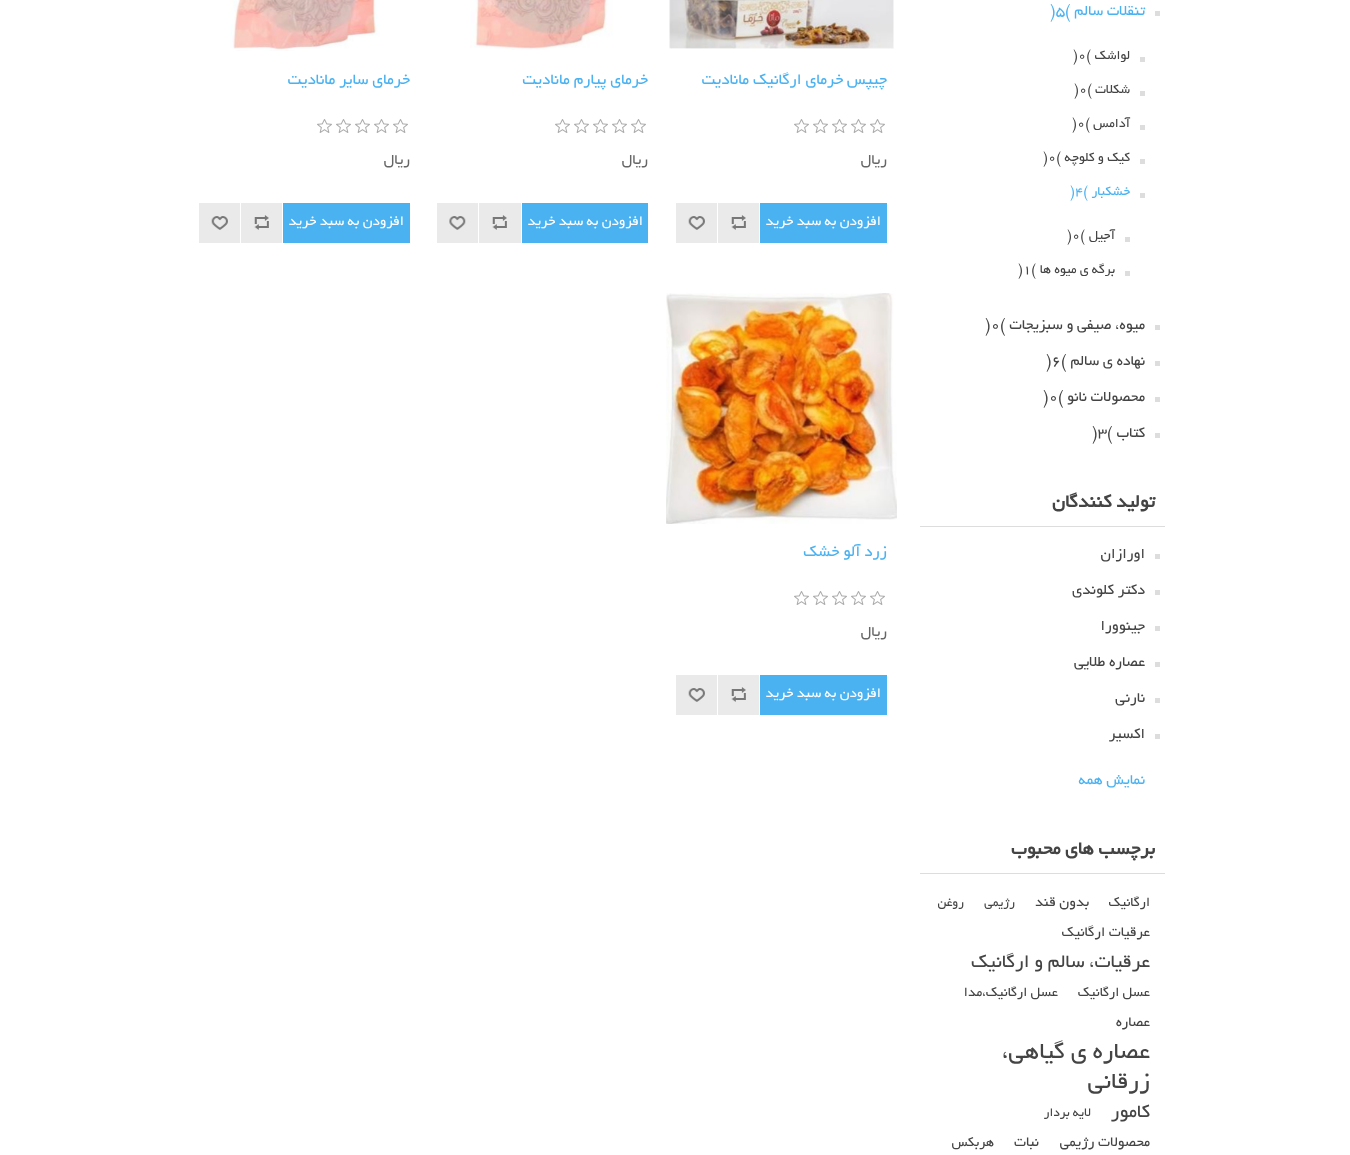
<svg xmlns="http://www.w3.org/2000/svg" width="1350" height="1155">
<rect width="100%" height="100%" fill="#fff"/>
<rect x="1155" y="11" width="5" height="5" fill="#ddd"/>
<text x="1145" y="15" style="font-family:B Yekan;font-size:16px;direction:rtl;fill:#4ab2f1">تنقلات سالم</text>
<text x="1050" y="15" style="font-family:B Yekan;font-size:16px;fill:#4ab2f1">)5(</text>
<rect x="1140" y="57" width="5" height="5" fill="#ddd"/>
<text x="1130" y="59" style="font-family:B Yekan;font-size:14px;direction:rtl;fill:#444">لواشک</text>
<text x="1073" y="59" style="font-family:B Yekan;font-size:14px;fill:#444">)0(</text>
<rect x="1140" y="91" width="5" height="5" fill="#ddd"/>
<text x="1130" y="93" style="font-family:B Yekan;font-size:14px;direction:rtl;fill:#444">شکلات</text>
<text x="1074" y="93" style="font-family:B Yekan;font-size:14px;fill:#444">)0(</text>
<rect x="1140" y="125" width="5" height="5" fill="#ddd"/>
<text x="1130" y="127" style="font-family:B Yekan;font-size:14px;direction:rtl;fill:#444">آدامس</text>
<text x="1072" y="127" style="font-family:B Yekan;font-size:14px;fill:#444">)0(</text>
<rect x="1140" y="159" width="5" height="5" fill="#ddd"/>
<text x="1130" y="161" style="font-family:B Yekan;font-size:14px;direction:rtl;fill:#444">کیک و کلوچه</text>
<text x="1043" y="161" style="font-family:B Yekan;font-size:14px;fill:#444">)0(</text>
<rect x="1140" y="193" width="5" height="5" fill="#ddd"/>
<text x="1130" y="195" style="font-family:B Yekan;font-size:14px;direction:rtl;fill:#4ab2f1">خشکبار</text>
<text x="1070" y="195" style="font-family:B Yekan;font-size:14px;fill:#4ab2f1">)4(</text>
<rect x="1125" y="237" width="5" height="5" fill="#ddd"/>
<text x="1115" y="239" style="font-family:B Yekan;font-size:14px;direction:rtl;fill:#444">آجیل</text>
<text x="1067" y="239" style="font-family:B Yekan;font-size:14px;fill:#444">)0(</text>
<rect x="1125" y="271" width="5" height="5" fill="#ddd"/>
<text x="1115" y="273" style="font-family:B Yekan;font-size:14px;direction:rtl;fill:#444">برگه ی میوه ها</text>
<text x="1018" y="273" style="font-family:B Yekan;font-size:14px;fill:#444">)1(</text>
<rect x="1155" y="325" width="5" height="5" fill="#ddd"/>
<text x="1145" y="329" style="font-family:B Yekan;font-size:16px;direction:rtl;fill:#444">میوه، صیفی و سبزیجات</text>
<text x="985" y="329" style="font-family:B Yekan;font-size:16px;fill:#444">)0(</text>
<rect x="1155" y="361" width="5" height="5" fill="#ddd"/>
<text x="1145" y="365" style="font-family:B Yekan;font-size:16px;direction:rtl;fill:#444">نهاده ی سالم</text>
<text x="1046" y="365" style="font-family:B Yekan;font-size:16px;fill:#444">)6(</text>
<rect x="1155" y="397" width="5" height="5" fill="#ddd"/>
<text x="1145" y="401" style="font-family:B Yekan;font-size:16px;direction:rtl;fill:#444">محصولات نانو</text>
<text x="1043" y="401" style="font-family:B Yekan;font-size:16px;fill:#444">)0(</text>
<rect x="1155" y="433" width="5" height="5" fill="#ddd"/>
<text x="1145" y="437" style="font-family:B Yekan;font-size:16px;direction:rtl;fill:#444">کتاب</text>
<text x="1092" y="437" style="font-family:B Yekan;font-size:16px;fill:#444">)3(</text>
<rect x="920" y="526" width="245" height="1" fill="#ddd"/>
<text x="1155" y="507" style="font-family:B Yekan;font-size:20px;font-weight:bold;direction:rtl;fill:#444">تولید کنندگان</text>
<rect x="1155" y="554" width="5" height="5" fill="#ddd"/>
<text x="1145" y="558" style="font-family:B Yekan;font-size:16px;direction:rtl;fill:#444">اورازان</text>
<rect x="1155" y="590" width="5" height="5" fill="#ddd"/>
<text x="1145" y="594" style="font-family:B Yekan;font-size:16px;direction:rtl;fill:#444">دکتر کلوندی</text>
<rect x="1155" y="626" width="5" height="5" fill="#ddd"/>
<text x="1145" y="630" style="font-family:B Yekan;font-size:16px;direction:rtl;fill:#444">جینوورا</text>
<rect x="1155" y="662" width="5" height="5" fill="#ddd"/>
<text x="1145" y="666" style="font-family:B Yekan;font-size:16px;direction:rtl;fill:#444">عصاره طلایی</text>
<rect x="1155" y="698" width="5" height="5" fill="#ddd"/>
<text x="1145" y="702" style="font-family:B Yekan;font-size:16px;direction:rtl;fill:#444">نارنی</text>
<rect x="1155" y="734" width="5" height="5" fill="#ddd"/>
<text x="1145" y="738" style="font-family:B Yekan;font-size:16px;direction:rtl;fill:#444">اکسیر</text>
<text x="1145" y="784" style="font-family:B Yekan;font-size:16px;direction:rtl;fill:#4ab2f1">نمایش همه</text>
<rect x="920" y="873" width="245" height="1" fill="#ddd"/>
<text x="1155" y="854" style="font-family:B Yekan;font-size:20px;font-weight:bold;direction:rtl;fill:#444">برچسب های محبوب</text>
<text x="1150" y="906" style="font-family:B Yekan;font-size:14.5px;direction:rtl;fill:#444">ارگانیک</text>
<text x="1089" y="906" style="font-family:B Yekan;font-size:15.25px;direction:rtl;fill:#444">بدون قند</text>
<text x="1015" y="906" style="font-family:B Yekan;font-size:13.5px;direction:rtl;fill:#444">رژیمی</text>
<text x="964" y="906" style="font-family:B Yekan;font-size:13.5px;direction:rtl;fill:#444">روغن</text>
<text x="1150" y="936" style="font-family:B Yekan;font-size:15.25px;direction:rtl;fill:#444">عرقیات ارگانیک</text>
<text x="1150" y="967" style="font-family:B Yekan;font-size:20.5px;direction:rtl;fill:#444">عرقیات، سالم و ارگانیک</text>
<text x="1150" y="996" style="font-family:B Yekan;font-size:14.5px;direction:rtl;fill:#444">عسل ارگانیک</text>
<text x="1058" y="996" style="font-family:B Yekan;font-size:14.5px;direction:rtl;fill:#444">عسل ارگانیک،مدا</text>
<text x="1150" y="1026" style="font-family:B Yekan;font-size:15.25px;direction:rtl;fill:#444">عصاره</text>
<text x="1150" y="1058" style="font-family:B Yekan;font-size:25.5px;direction:rtl;fill:#444">عصاره ی گیاهی،</text>
<text x="1150" y="1088" style="font-family:B Yekan;font-size:25.5px;direction:rtl;fill:#444">زرقانی</text>
<text x="1150" y="1117" style="font-family:B Yekan;font-size:20.5px;direction:rtl;fill:#444">کامور</text>
<text x="1091" y="1116" style="font-family:B Yekan;font-size:13.5px;direction:rtl;fill:#444">لایه بردار</text>
<text x="1150" y="1146" style="font-family:B Yekan;font-size:15.25px;direction:rtl;fill:#444">محصولات رژیمی</text>
<text x="1039" y="1146" style="font-family:B Yekan;font-size:15.25px;direction:rtl;fill:#444">نبات</text>
<text x="994" y="1146" style="font-family:B Yekan;font-size:14.5px;direction:rtl;fill:#444">هربکس</text>
<image x="669" y="0" width="225" height="49" href="media/1.png"/>
<text x="887" y="84" style="font-family:B Yekan;font-size:17px;direction:rtl;fill:#4ab2f1">چیپس خرمای ارگانیک مانادیت</text>
<image x="794" y="119" width="91" height="14" href="media/2.png"/>
<text x="887" y="164" style="font-family:B Yekan;font-size:16px;direction:rtl;fill:#666">ریال</text>
<rect x="760" y="203" width="127" height="40" fill="#4ab2f1"/>
<text x="881" y="225" style="font-family:B Yekan;font-size:15px;direction:rtl;fill:#fff">افزودن به سبد خرید</text>
<rect x="718" y="203" width="41" height="40" fill="#eaeaea"/>
<image x="731" y="215" width="15" height="15" href="media/3.png"/>
<rect x="676" y="203" width="41" height="40" fill="#eaeaea"/>
<image x="688" y="216" width="17" height="14" href="media/4.png"/>
<image x="470" y="0" width="143" height="50" href="media/5.png"/>
<text x="648" y="84" style="font-family:B Yekan;font-size:17px;direction:rtl;fill:#4ab2f1">خرمای پیارم مانادیت</text>
<image x="555" y="119" width="91" height="14" href="media/2.png"/>
<text x="648" y="164" style="font-family:B Yekan;font-size:16px;direction:rtl;fill:#666">ریال</text>
<rect x="522" y="203" width="126" height="40" fill="#4ab2f1"/>
<text x="643" y="225" style="font-family:B Yekan;font-size:15px;direction:rtl;fill:#fff">افزودن به سبد خرید</text>
<rect x="479" y="203" width="42" height="40" fill="#eaeaea"/>
<image x="492" y="215" width="15" height="15" href="media/3.png"/>
<rect x="437" y="203" width="41" height="40" fill="#eaeaea"/>
<image x="449" y="216" width="17" height="14" href="media/6.png"/>
<image x="230" y="0" width="150" height="51" href="media/7.png"/>
<text x="410" y="84" style="font-family:B Yekan;font-size:17px;direction:rtl;fill:#4ab2f1">خرمای سایر مانادیت</text>
<image x="317" y="119" width="91" height="14" href="media/2.png"/>
<text x="410" y="164" style="font-family:B Yekan;font-size:16px;direction:rtl;fill:#666">ریال</text>
<rect x="283" y="203" width="127" height="40" fill="#4ab2f1"/>
<text x="404" y="225" style="font-family:B Yekan;font-size:15px;direction:rtl;fill:#fff">افزودن به سبد خرید</text>
<rect x="241" y="203" width="41" height="40" fill="#eaeaea"/>
<image x="254" y="215" width="15" height="15" href="media/3.png"/>
<rect x="199" y="203" width="41" height="40" fill="#eaeaea"/>
<image x="211" y="216" width="17" height="14" href="media/4.png"/>
<image x="666" y="293" width="231" height="231" href="media/8.png"/>
<text x="887" y="556" style="font-family:B Yekan;font-size:17px;direction:rtl;fill:#4ab2f1">زرد آلو خشک</text>
<image x="794" y="591" width="91" height="14" href="media/2.png"/>
<text x="887" y="636" style="font-family:B Yekan;font-size:16px;direction:rtl;fill:#666">ریال</text>
<rect x="760" y="675" width="127" height="40" fill="#4ab2f1"/>
<text x="881" y="697" style="font-family:B Yekan;font-size:15px;direction:rtl;fill:#fff">افزودن به سبد خرید</text>
<rect x="718" y="675" width="41" height="40" fill="#eaeaea"/>
<image x="731" y="687" width="15" height="15" href="media/3.png"/>
<rect x="676" y="675" width="41" height="40" fill="#eaeaea"/>
<image x="688" y="688" width="17" height="14" href="media/4.png"/>
</svg>
